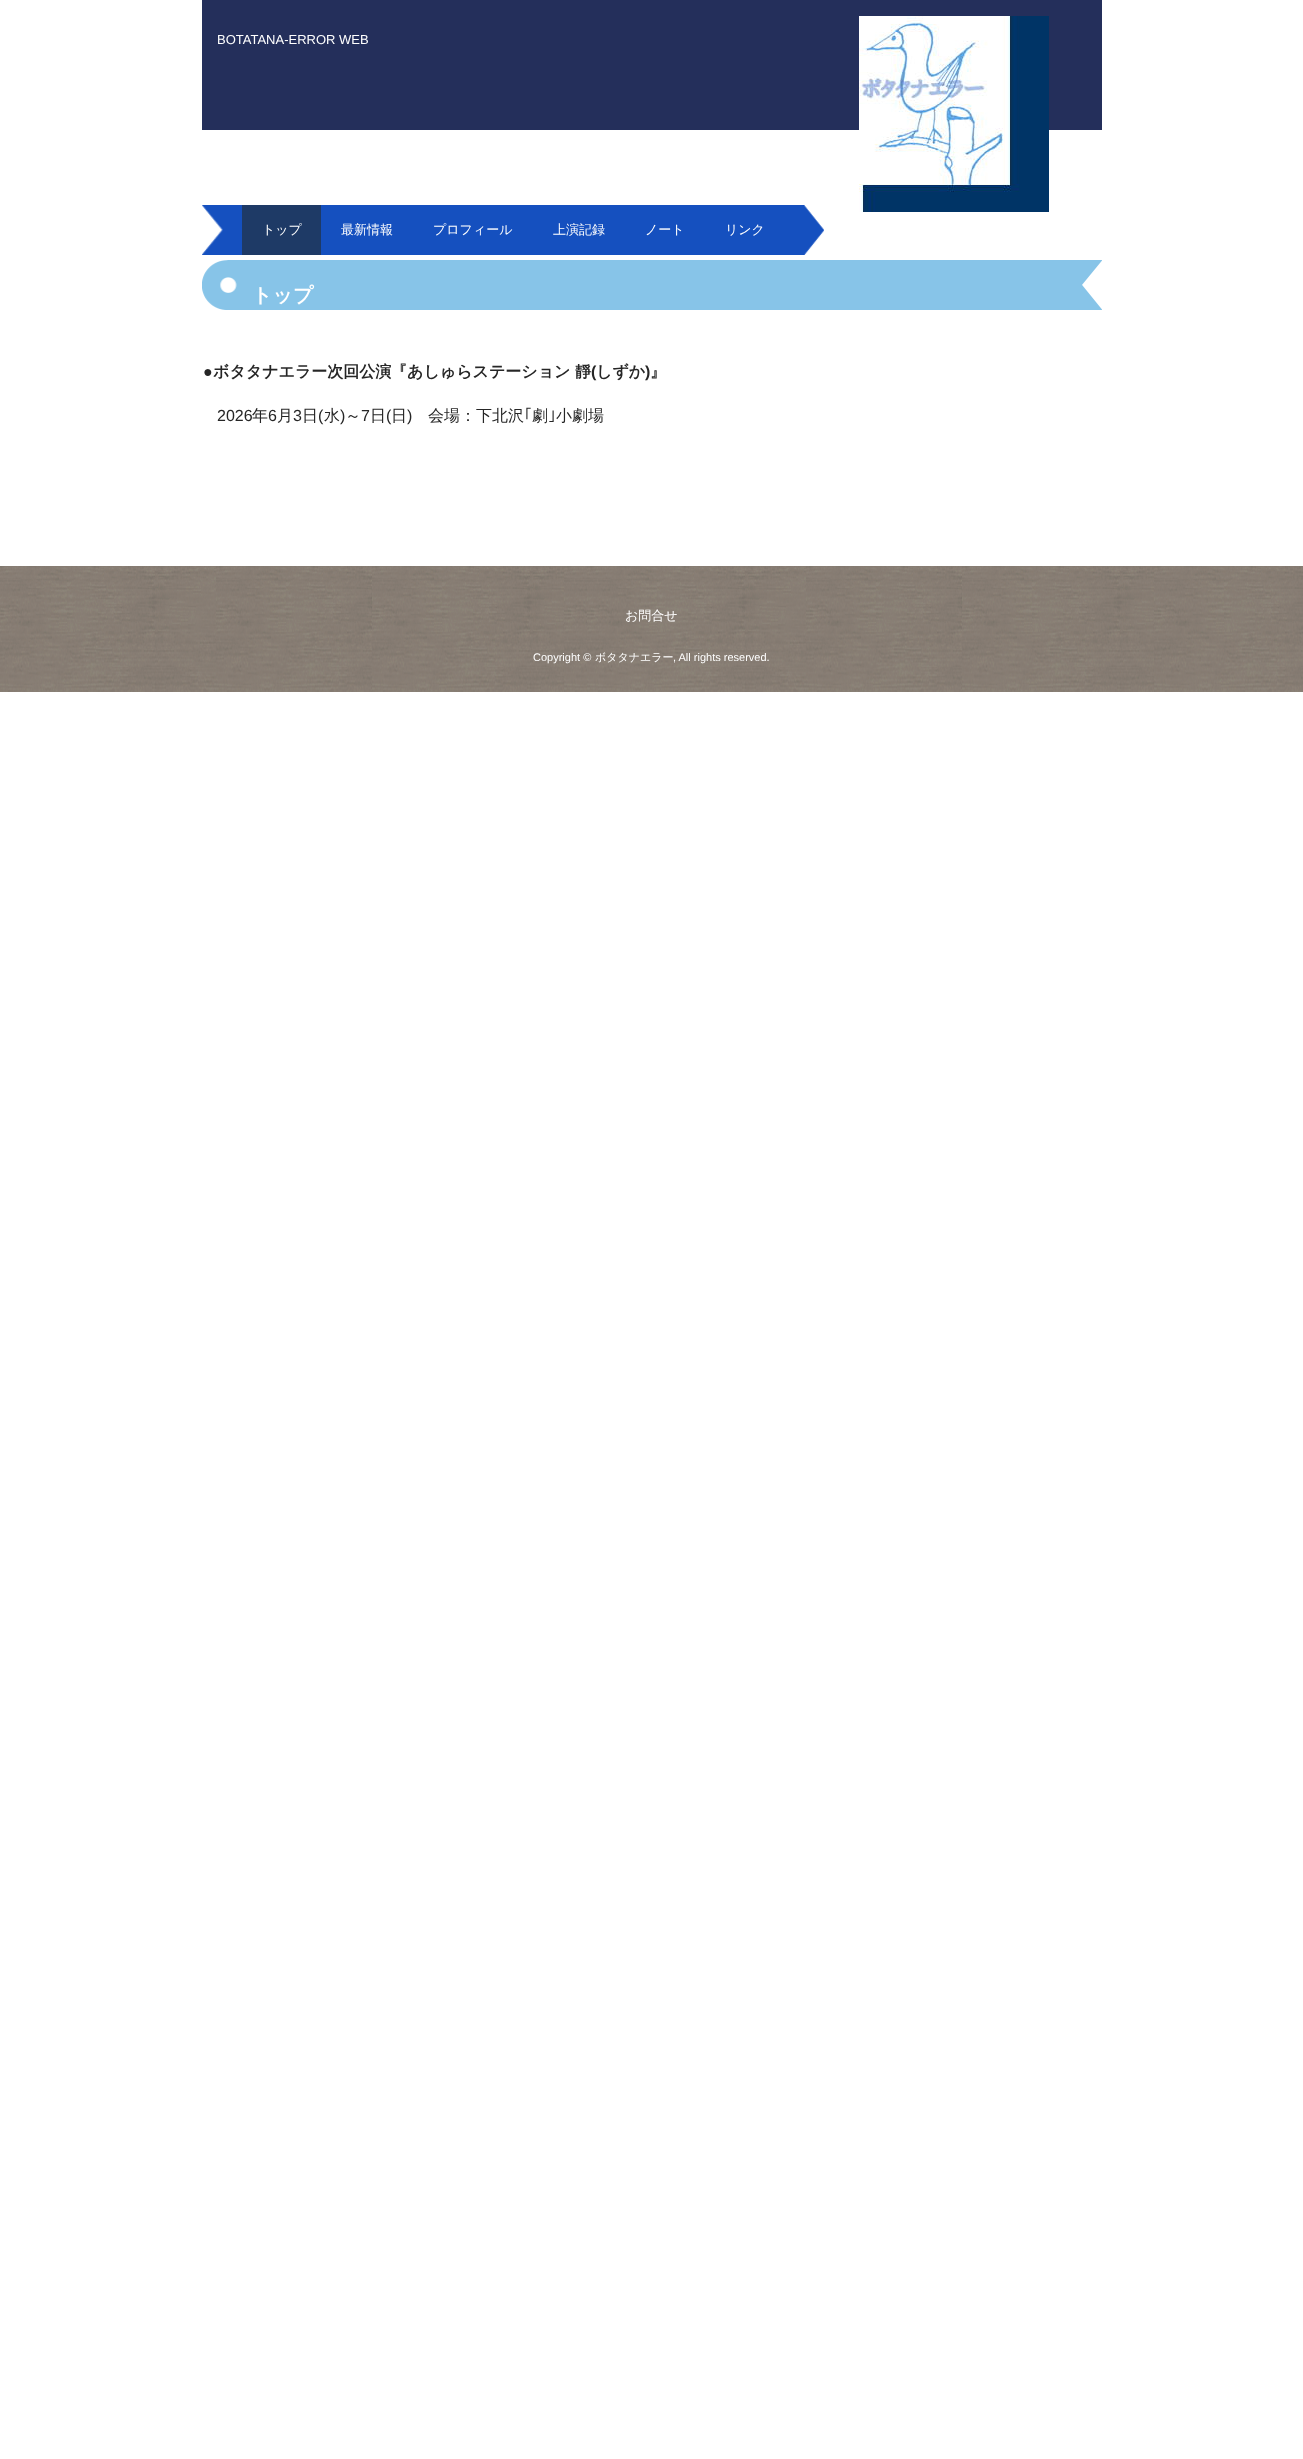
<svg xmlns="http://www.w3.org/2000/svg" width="1303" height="2459">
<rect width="100%" height="100%" fill="#fff"/>
<rect x="202" width="900" height="130" fill="#242f5b"/>
<text x="217" y="44" style="font-family:Liberation Sans;font-size:13px;fill:#fff">BOTATANA-ERROR WEB</text>
<image x="859" y="16" width="190" height="196" href="media/1.png"/>
<image x="202" y="205" width="40" height="50" href="media/2.png"/>
<rect x="242" y="205" width="79" height="50" fill="#1e3a66"/>
<text x="262" y="234" style="font-family:WenQuanYi Zen Hei;font-size:13px;font-weight:500;fill:#fff">トップ</text>
<rect x="321" y="205" width="463" height="50" fill="#1550bf"/>
<text x="341" y="234" style="font-family:WenQuanYi Zen Hei;font-size:13px;font-weight:500;fill:#fff">最新情報</text>
<text x="433" y="234" style="font-family:WenQuanYi Zen Hei;font-size:13px;font-weight:500;fill:#fff">プロフィール</text>
<text x="553" y="234" style="font-family:WenQuanYi Zen Hei;font-size:13px;font-weight:500;fill:#fff">上演記録</text>
<text x="645" y="234" style="font-family:WenQuanYi Zen Hei;font-size:13px;font-weight:500;fill:#fff">ノート</text>
<image x="784" y="205" width="40" height="50" href="media/3.png"/>
<text x="725" y="234" style="font-family:WenQuanYi Zen Hei;font-size:13px;font-weight:500;fill:#fff">リンク</text>
<image x="202" y="260" width="900" height="50" href="media/4.png"/>
<rect x="259" y="260" width="793" height="50" fill="#87c4e8"/>
<text x="252" y="302" style="font-family:WenQuanYi Zen Hei;font-size:20px;font-weight:bold;fill:#fff">トップ</text>
<text x="203" y="377" style="font-family:Liberation Sans;font-size:16px;fill:#262626">●</text>
<text x="213" y="377" style="font-family:WenQuanYi Zen Hei;font-size:16px;font-weight:bold;fill:#262626">ボタタナエラー次回公演</text>
<text x="391" y="377" style="font-family:WenQuanYi Zen Hei;font-size:16px;font-weight:bold;fill:#262626">『あしゅらステーション 靜</text>
<text x="591" y="377" style="font-family:Liberation Sans;font-size:16px;font-weight:bold;fill:#262626">(</text>
<text x="596" y="377" style="font-family:WenQuanYi Zen Hei;font-size:16px;font-weight:bold;fill:#262626">しずか</text>
<text x="645" y="377" style="font-family:Liberation Sans;font-size:16px;font-weight:bold;fill:#262626">)</text>
<text x="650" y="377" style="font-family:WenQuanYi Zen Hei;font-size:16px;font-weight:bold;fill:#262626">』</text>
<text x="217" y="421" style="font-family:Liberation Sans;font-size:16px;fill:#262626">2026</text>
<text x="252" y="421" style="font-family:WenQuanYi Zen Hei;font-size:16px;font-weight:500;fill:#262626">年</text>
<text x="268" y="421" style="font-family:Liberation Sans;font-size:16px;fill:#262626">6</text>
<text x="277" y="421" style="font-family:WenQuanYi Zen Hei;font-size:16px;font-weight:500;fill:#262626">月</text>
<text x="293" y="421" style="font-family:Liberation Sans;font-size:16px;fill:#262626">3</text>
<text x="302" y="421" style="font-family:WenQuanYi Zen Hei;font-size:16px;font-weight:500;fill:#262626">日</text>
<text x="318" y="421" style="font-family:Liberation Sans;font-size:16px;fill:#262626">(</text>
<text x="324" y="421" style="font-family:WenQuanYi Zen Hei;font-size:16px;font-weight:500;fill:#262626">水</text>
<text x="340" y="421" style="font-family:Liberation Sans;font-size:16px;fill:#262626">)</text>
<text x="345" y="421" style="font-family:WenQuanYi Zen Hei;font-size:16px;font-weight:500;fill:#262626">～</text>
<text x="361" y="421" style="font-family:Liberation Sans;font-size:16px;fill:#262626">7</text>
<text x="370" y="421" style="font-family:WenQuanYi Zen Hei;font-size:16px;font-weight:500;fill:#262626">日</text>
<text x="386" y="421" style="font-family:Liberation Sans;font-size:16px;fill:#262626">(</text>
<text x="391" y="421" style="font-family:WenQuanYi Zen Hei;font-size:16px;font-weight:500;fill:#262626">日</text>
<text x="407" y="421" style="font-family:Liberation Sans;font-size:16px;fill:#262626">)</text>
<text x="428" y="421" style="font-family:WenQuanYi Zen Hei;font-size:16px;font-weight:500;fill:#262626">会場：下北沢</text>
<text x="524" y="421" style="font-family:IPAPGothic;font-size:16px;fill:#262626">｢</text>
<text x="532" y="421" style="font-family:WenQuanYi Zen Hei;font-size:16px;font-weight:500;fill:#262626">劇</text>
<text x="548" y="421" style="font-family:IPAPGothic;font-size:16px;fill:#262626">｣</text>
<text x="556" y="421" style="font-family:WenQuanYi Zen Hei;font-size:16px;font-weight:500;fill:#262626">小劇場</text>
<image x="0" y="566" width="1303" height="126" href="media/5.png"/>
<text x="625" y="620" style="font-family:WenQuanYi Zen Hei;font-size:13px;font-weight:500;fill:#fff">お問合せ</text>
<text x="533" y="661" style="font-family:Liberation Sans;font-size:11px;fill:#fff">Copyright ©</text>
<text x="595" y="661" style="font-family:WenQuanYi Zen Hei;font-size:11px;font-weight:500;fill:#fff">ボタタナエラー</text>
<text x="673" y="661" style="font-family:Liberation Sans;font-size:11px;fill:#fff">, All rights reserved.</text>
</svg>
